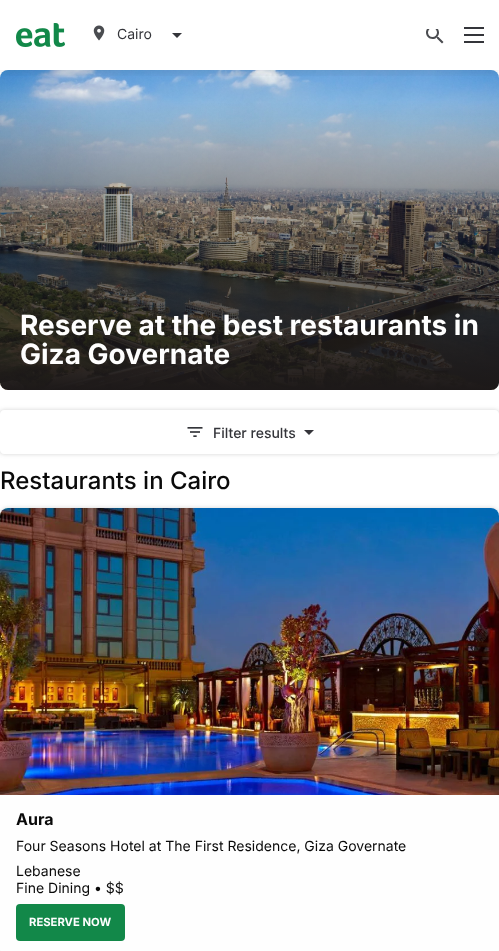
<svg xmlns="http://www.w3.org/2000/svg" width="499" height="951">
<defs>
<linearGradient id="g1" gradientUnits="userSpaceOnUse" x1="249" y1="70" x2="250" y2="390"><stop offset="0.1" stop-color="#1d1919" stop-opacity="0"/><stop offset="1" stop-color="#1d1919"/></linearGradient>
<clipPath id="clip1"><rect x="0" y="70" width="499" height="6"/></clipPath>
<clipPath id="clip2"><path d="M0 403h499v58h-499zm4 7h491c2 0 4 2 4 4v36c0 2-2 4-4 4h-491c-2 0-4-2-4-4v-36c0-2 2-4 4-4z" clip-rule="evenodd"/></clipPath>
</defs>
<rect width="100%" height="100%" fill="#fff"/>
<image x="0" y="70" width="499" height="320" href="media/4.png"/>
<rect y="70" width="499" height="320" rx="8" fill="url(#g1)"/>
<g clip-path="url(#clip1)">
<rect y="2" width="499" height="70" fill="#50505026" filter="blur(4px)"/>
</g>
<image x="16" y="23" width="49" height="24" href="media/1.png"/>
<image x="93" y="25" width="12" height="16" href="media/2.png"/>
<text x="117" y="39" style="font-family:Inter;font-size:14px;fill:#34353a">Cairo</text>
<path d="M172 33l5 5l5-5z" fill="#34353a"/>
<image x="426" y="29" width="18" height="15" href="media/3.png"/>
<rect x="464" y="41" width="20" height="2" fill="#34353a"/>
<rect x="464" y="34" width="20" height="2" fill="#34353a"/>
<rect x="464" y="27" width="20" height="2" fill="#34353a"/>
<text x="20" y="335" style="font-family:Inter;font-size:28px;font-weight:bold;fill:#fefefe">Reserve at the best restaurants in</text>
<text x="20" y="364" style="font-family:Inter;font-size:28px;font-weight:bold;fill:#fefefe">Giza Governate</text>
<g clip-path="url(#clip2)">
<rect y="410" width="499" height="44" rx="4" fill="#50505040" filter="blur(2px)"/>
</g>
<image x="187" y="427" width="16" height="10" href="media/5.png"/>
<text x="213" y="438" style="font-family:Inter;font-size:14px;font-weight:500;fill:#34353a">Filter results</text>
<path d="M304 430l5 5l5-5z" fill="#34353a"/>
<text x="0" y="489" style="font-family:Inter;font-size:24px;font-weight:500;fill:#0a0a0a">Restaurants in Cairo</text>
<rect y="508" width="499" height="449" rx="8" fill="#50505040" filter="blur(2px)"/>
<rect y="508" width="499" height="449" rx="8" fill="#fefefe"/>
<image x="0" y="508" width="499" height="287" href="media/6.png"/>
<text x="16" y="825" style="font-family:Inter;font-size:16px;font-weight:bold;fill:#0a0a0a">Aura</text>
<text x="16" y="851" style="font-family:Inter;font-size:14px;fill:#0a0a0a">Four Seasons Hotel at The First Residence, Giza Governate</text>
<text x="16" y="876" style="font-family:Inter;font-size:14px;fill:#0a0a0a">Lebanese</text>
<text x="16" y="893" style="font-family:Inter;font-size:14px;fill:#0a0a0a">Fine Dining • $$</text>
<rect x="16" y="904" width="109" height="37" rx="4" fill="#128849"/>
<text x="29" y="926" style="font-family:Inter;font-size:11.25px;font-weight:bold;fill:#fefefe">RESERVE NOW</text>
</svg>
